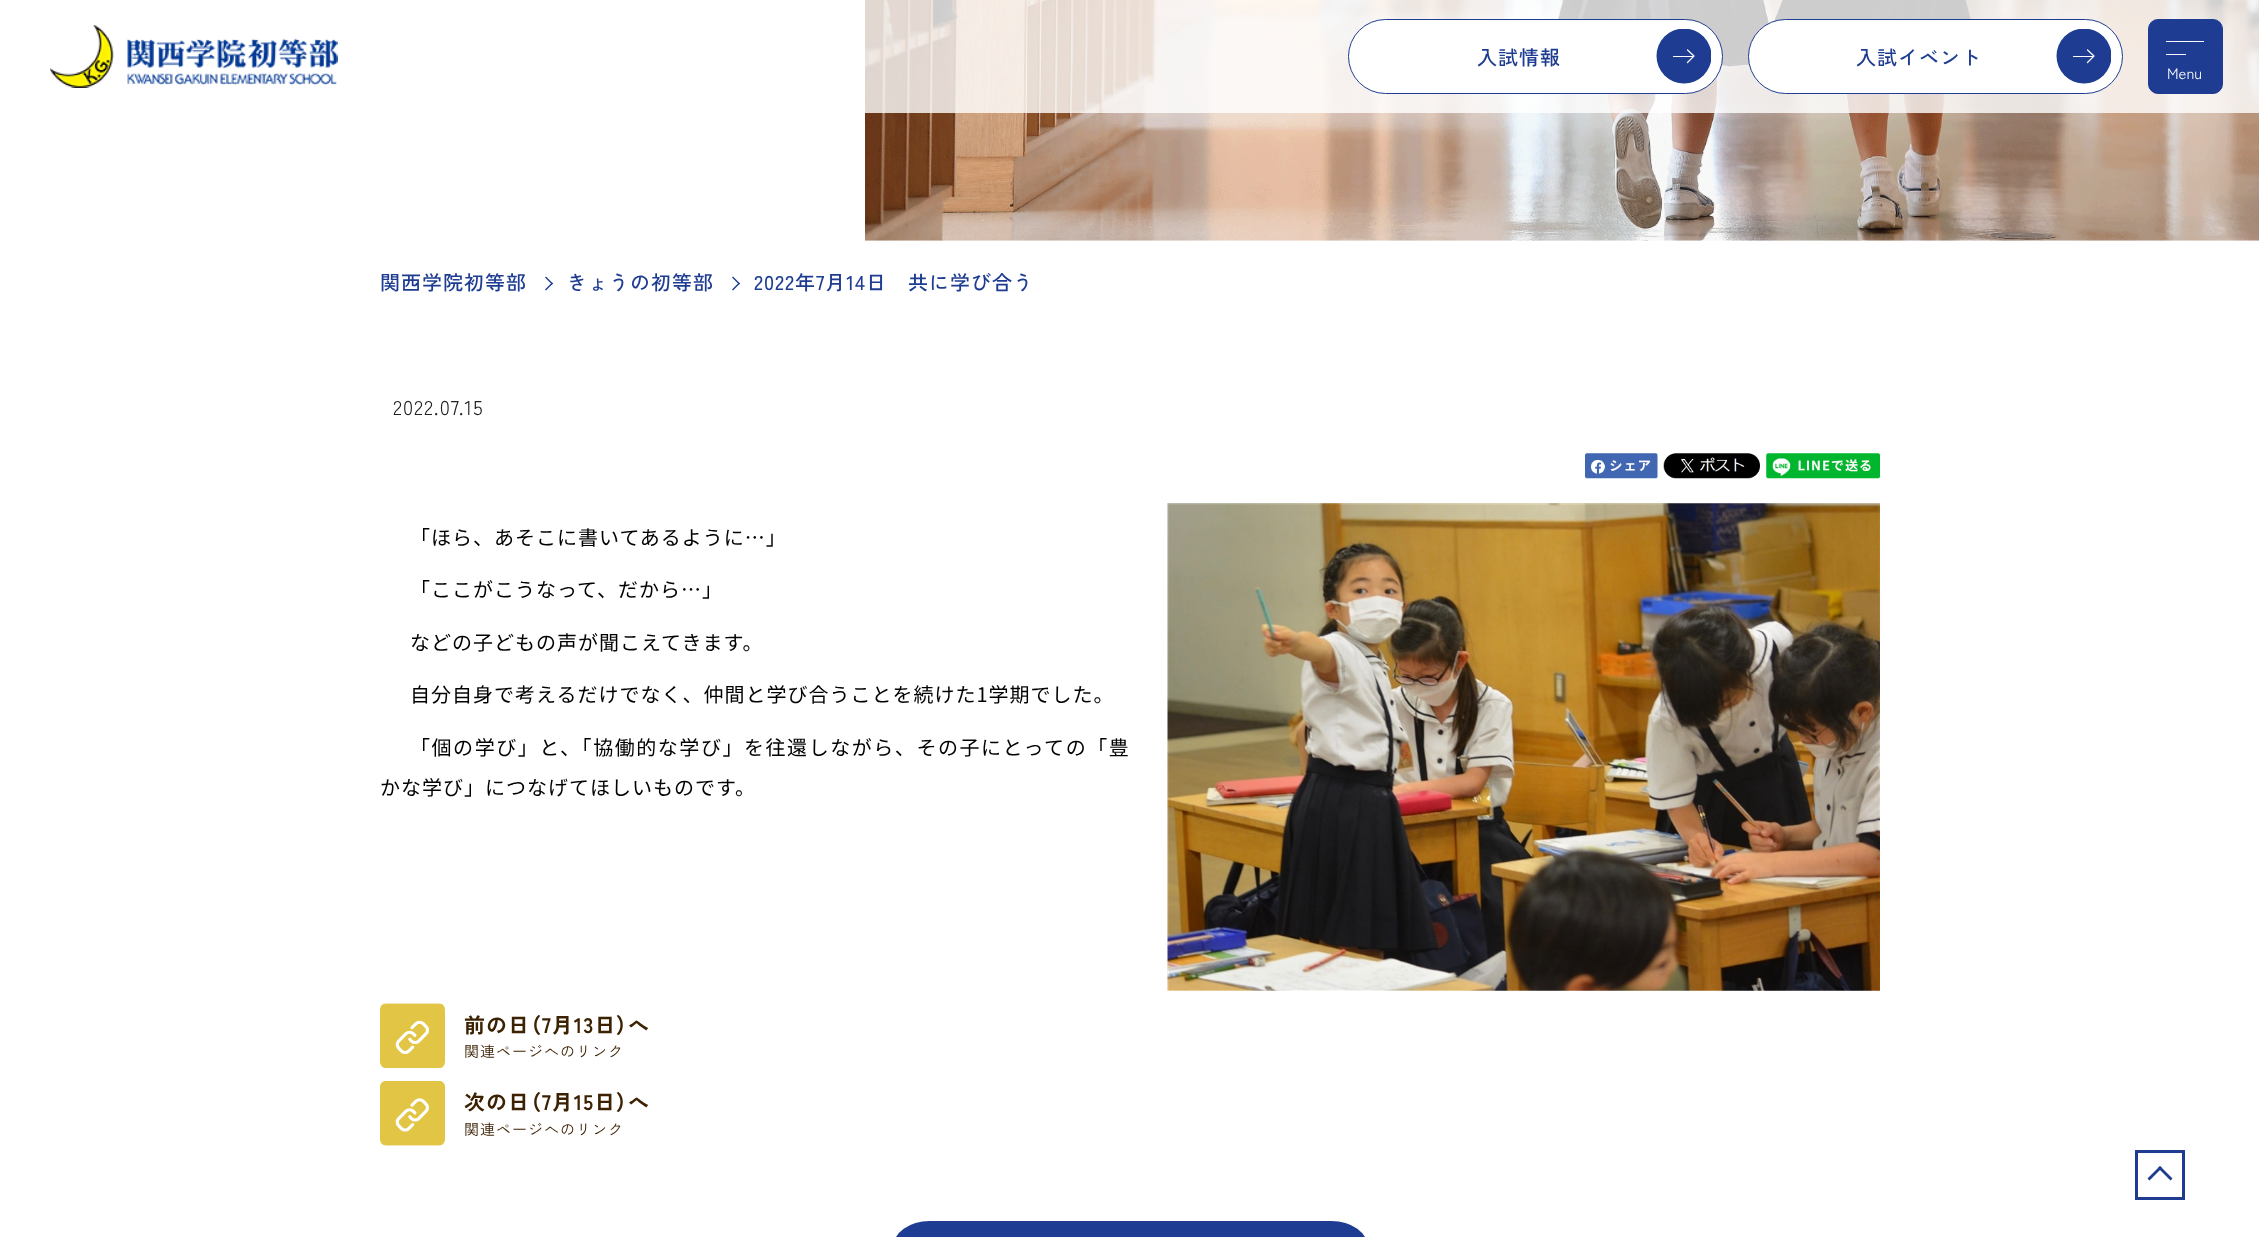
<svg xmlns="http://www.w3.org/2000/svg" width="2259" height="1237">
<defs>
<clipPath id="clip1"><rect x="1656" y="29" width="55" height="55"/></clipPath>
<clipPath id="clip2"><rect x="2056" y="29" width="55" height="55"/></clipPath>
</defs>
<rect width="100%" height="100%" fill="#fff"/>
<image x="865" y="0" width="1394" height="241" href="media/2.png"/>
<rect x="865" width="1394" height="113" fill="#ffffffcc"/>
<image x="50" y="25" width="288" height="63" href="media/1.png"/>
<rect x="1348.5" y="19.5" width="374" height="74" rx="37" fill="#fff" stroke="#1e3c91"/>
<text x="1477" y="65" style="font-family:Zen Kaku Gothic New;font-size:20px;font-weight:500;letter-spacing:1px;fill:#1e3c91">入試情報</text>
<g clip-path="url(#clip1)">
<circle cx="1684" cy="56" r="27.5" fill="#1e3c91"/>
</g>
<path d="M1673.5 56.5h19" fill="none" stroke="#fff" stroke-width="1.2" stroke-linecap="round"/>
<path d="M1687.5 50l6.5 6l-6.5 6.5" fill="none" stroke="#fff" stroke-width="1.2" stroke-linecap="round" stroke-linejoin="round"/>
<rect x="1748.5" y="19.5" width="374" height="74" rx="37" fill="#fff" stroke="#1e3c91"/>
<text x="1856" y="65" style="font-family:Zen Kaku Gothic New;font-size:20px;font-weight:500;letter-spacing:1px;fill:#1e3c91">入試イベント</text>
<g clip-path="url(#clip2)">
<circle cx="2084" cy="56" r="27.5" fill="#1e3c91"/>
</g>
<path d="M2073.5 56.5h19" fill="none" stroke="#fff" stroke-width="1.2" stroke-linecap="round"/>
<path d="M2087.5 50l6.5 6l-6.5 6.5" fill="none" stroke="#fff" stroke-width="1.2" stroke-linecap="round" stroke-linejoin="round"/>
<rect x="2148.5" y="19.5" width="74" height="74" rx="9.5" fill="#1e3c91" stroke="#1e3c91"/>
<rect x="2166" y="41" width="38" height="1" fill="#fff"/>
<rect x="2166" y="54" width="20" height="1" fill="#fff"/>
<text x="2167" y="79" style="font-family:Zen Kaku Gothic New;font-size:15px;fill:#fff">Menu</text>
<text x="380" y="290" style="font-family:Zen Kaku Gothic New;font-size:20px;font-weight:500;letter-spacing:1px;fill:#1e3c91">関西学院初等部</text>
<path d="M546 276.5l7 7l-1 1l-7-7z" fill="#1e3c91"/>
<path d="M552 282.5l1 1l-7 7l-1-1z" fill="#1e3c91"/>
<text x="567" y="290" style="font-family:Zen Kaku Gothic New;font-size:20px;font-weight:500;letter-spacing:1px;fill:#1e3c91">きょうの初等部</text>
<path d="M733 276.5l7 7l-1 1l-7-7z" fill="#1e3c91"/>
<path d="M739 282.5l1 1l-7 7l-1-1z" fill="#1e3c91"/>
<text x="754" y="290" style="font-family:Zen Kaku Gothic New;font-size:20px;font-weight:500;letter-spacing:1px;fill:#1e3c91">2022年7月14日　共に学び合う</text>
<text x="393" y="415" style="font-family:Zen Kaku Gothic New;font-size:20px;letter-spacing:1px;fill:#212121">2022.07.15</text>
<image x="1585" y="453" width="73" height="26" href="media/3.png"/>
<image x="1663" y="453" width="97" height="26" href="media/4.png"/>
<image x="1766" y="453" width="114" height="26" href="media/5.png"/>
<text x="410" y="545" style="font-family:Noto Sans CJK JP;font-size:20px;letter-spacing:1px;fill:#000">「ほら、あそこに書いてあるように…」</text>
<text x="410" y="597" style="font-family:Noto Sans CJK JP;font-size:20px;letter-spacing:1px;fill:#000">「ここがこうなって、だから…」</text>
<text x="410" y="650" style="font-family:Noto Sans CJK JP;font-size:20px;letter-spacing:1px;fill:#000">などの子どもの声が聞こえてきます。</text>
<text x="410" y="702" style="font-family:Noto Sans CJK JP;font-size:20px;letter-spacing:1px;fill:#000">自分自身で考えるだけでなく、仲間と学び合うことを続けた1学期でした。</text>
<text x="410" y="755" style="font-family:Noto Sans CJK JP;font-size:20px;letter-spacing:1.55px;fill:#000">「個の学び」と、「協働的な学び」を往還しながら、その子にとっての「豊</text>
<text x="380" y="795" style="font-family:Noto Sans CJK JP;font-size:20px;letter-spacing:1px;fill:#000">かな学び」につなげてほしいものです。</text>
<image x="1167" y="503" width="713" height="488" href="media/6.png"/>
<image x="380" y="1003" width="65" height="65" href="media/7.png"/>
<text x="464" y="1033" style="font-family:Zen Kaku Gothic New;font-size:21px;font-weight:bold;letter-spacing:1px;fill:#3c2102">前の日</text>
<text x="530" y="1033" style="font-family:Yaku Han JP;font-size:21px;font-weight:bold;letter-spacing:1px;fill:#3c2102">（</text>
<text x="542" y="1033" style="font-family:Zen Kaku Gothic New;font-size:21px;font-weight:bold;letter-spacing:1px;fill:#3c2102">7月13日</text>
<text x="616" y="1033" style="font-family:Yaku Han JP;font-size:21px;font-weight:bold;letter-spacing:1px;fill:#3c2102">）</text>
<text x="628" y="1033" style="font-family:Zen Kaku Gothic New;font-size:21px;font-weight:bold;letter-spacing:1px;fill:#3c2102">へ</text>
<text x="464" y="1057" style="font-family:Zen Kaku Gothic New;font-size:15px;letter-spacing:1px;fill:#3c2102">関連ページへのリンク</text>
<image x="380" y="1081" width="65" height="65" href="media/8.png"/>
<text x="464" y="1110" style="font-family:Zen Kaku Gothic New;font-size:21px;font-weight:bold;letter-spacing:1px;fill:#3c2102">次の日</text>
<text x="530" y="1110" style="font-family:Yaku Han JP;font-size:21px;font-weight:bold;letter-spacing:1px;fill:#3c2102">（</text>
<text x="542" y="1110" style="font-family:Zen Kaku Gothic New;font-size:21px;font-weight:bold;letter-spacing:1px;fill:#3c2102">7月15日</text>
<text x="616" y="1110" style="font-family:Yaku Han JP;font-size:21px;font-weight:bold;letter-spacing:1px;fill:#3c2102">）</text>
<text x="628" y="1110" style="font-family:Zen Kaku Gothic New;font-size:21px;font-weight:bold;letter-spacing:1px;fill:#3c2102">へ</text>
<text x="464" y="1135" style="font-family:Zen Kaku Gothic New;font-size:15px;letter-spacing:1px;fill:#3c2102">関連ページへのリンク</text>
<rect x="893" y="1221" width="475" height="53" rx="36.5" fill="#1e3c91"/>
<rect x="2136.5" y="1151.5" width="47" height="47" fill="none" stroke="#1e3c91" stroke-width="3"/>
<path d="M2160 1166l12.5 12.5l-2 2l-12.5-12.5z" fill="#1e3c91"/>
<path d="M2160 1166l2 2l-12.5 12.5l-2-2z" fill="#1e3c91"/>
</svg>
